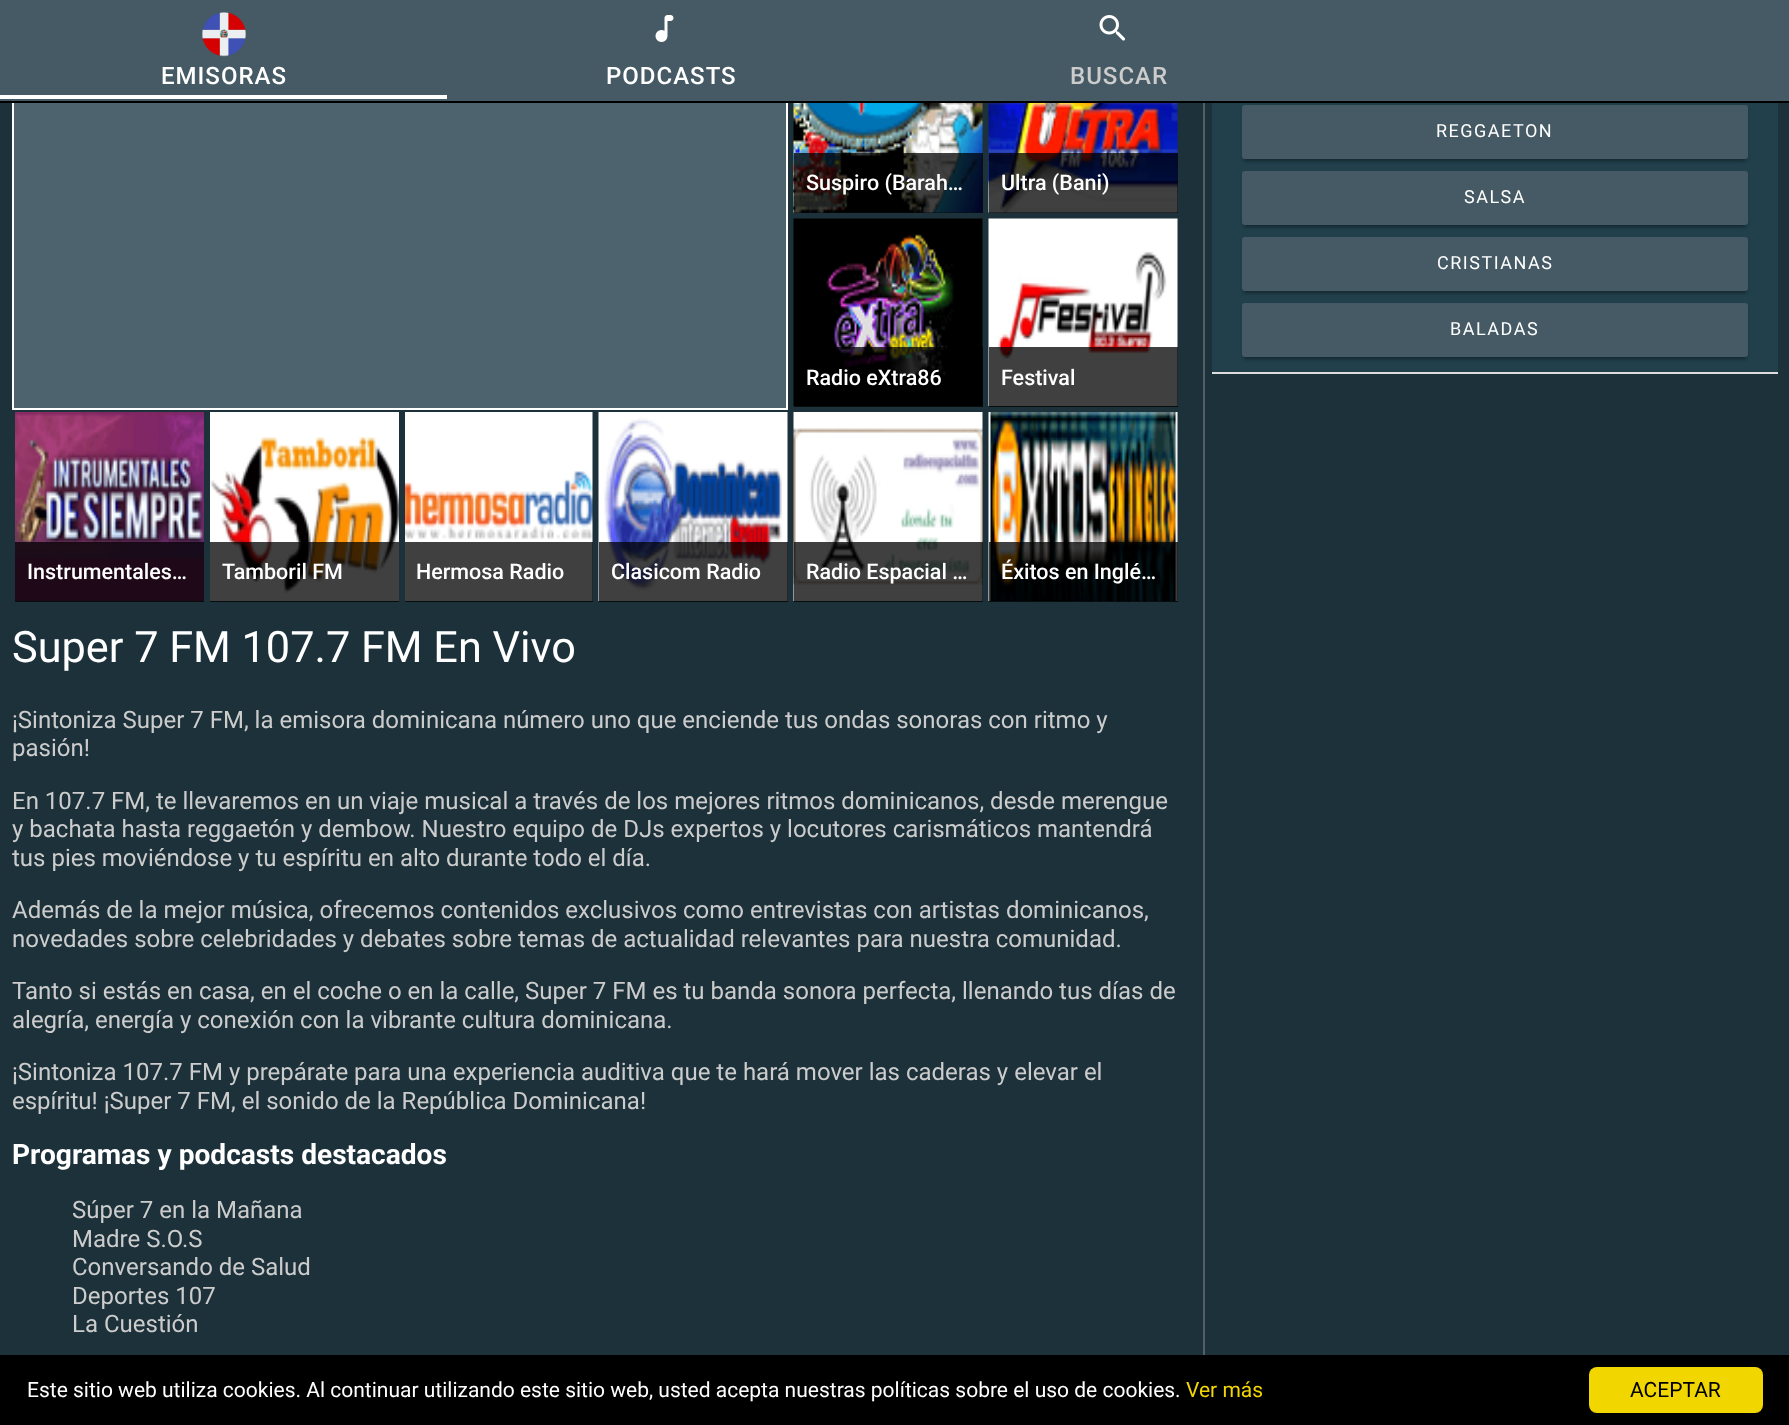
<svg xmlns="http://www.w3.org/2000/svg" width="1789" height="1425">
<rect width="100%" height="100%" fill="#1c313a"/>
<rect x="14" y="103" width="772" height="305" fill="#4d646f"/>
<rect x="13" y="-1" width="774" height="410" fill="none" stroke="#fff" stroke-width="2"/>
<rect width="1789" height="101" fill="#455a64"/>
<rect x="1212" y="103" width="566" height="269" fill="#21404b"/>
<rect x="1242" y="108" width="506" height="54" rx="3" fill="#00000024" filter="blur(1.5px)"/>
<rect y="101" width="1789" height="2" fill="#000"/>
<rect y="95" width="447" height="4" fill="#fff"/>
<image x="202" y="12" width="44" height="45" href="media/1.png"/>
<text x="161" y="84" style="font-family:Roboto;font-size:24px;font-weight:500;letter-spacing:1px;fill:#fff">EMISORAS</text>
<image x="655" y="15" width="19" height="27" href="media/2.png"/>
<text x="606" y="84" style="font-family:Roboto;font-size:24px;font-weight:500;letter-spacing:1px;fill:#fff">PODCASTS</text>
<image x="1099" y="15" width="26" height="26" href="media/3.png"/>
<text x="1070" y="84" style="font-family:Roboto;font-size:24px;font-weight:500;letter-spacing:1px;fill:#ccc">BUSCAR</text>
<image x="793" y="103" width="190" height="110" href="media/4.png"/>
<rect x="794" y="153" width="189" height="60" fill="#000000bf"/>
<text x="806" y="190" style="font-family:Roboto;font-size:21.5px;font-weight:500;fill:#fff">Suspiro (Barah…</text>
<image x="988" y="103" width="190" height="110" href="media/5.png"/>
<rect x="989" y="153" width="189" height="60" fill="#000000bf"/>
<text x="1001" y="190" style="font-family:Roboto;font-size:21.5px;font-weight:500;fill:#fff">Ultra (Bani)</text>
<image x="793" y="218" width="190" height="188" href="media/6.png"/>
<rect x="794" y="347" width="189" height="60" fill="#000000bf"/>
<text x="806" y="385" style="font-family:Roboto;font-size:21.5px;font-weight:500;fill:#fff">Radio eXtra86</text>
<image x="988" y="218" width="190" height="188" href="media/7.png"/>
<rect x="989" y="347" width="189" height="60" fill="#000000bf"/>
<text x="1001" y="385" style="font-family:Roboto;font-size:21.5px;font-weight:500;fill:#fff">Festival</text>
<image x="15" y="412" width="189" height="189" href="media/8.png"/>
<rect x="15" y="542" width="189" height="60" fill="#000000bf"/>
<text x="27" y="579" style="font-family:Roboto;font-size:21.5px;font-weight:500;fill:#fff">Instrumentales…</text>
<image x="210" y="412" width="189" height="189" href="media/9.png"/>
<rect x="210" y="542" width="189" height="60" fill="#000000bf"/>
<text x="222" y="579" style="font-family:Roboto;font-size:21.5px;font-weight:500;fill:#fff">Tamboril FM</text>
<image x="405" y="412" width="188" height="189" href="media/10.png"/>
<rect x="405" y="542" width="188" height="60" fill="#000000bf"/>
<text x="416" y="579" style="font-family:Roboto;font-size:21.5px;font-weight:500;fill:#fff">Hermosa Radio</text>
<image x="598" y="412" width="190" height="189" href="media/11.png"/>
<rect x="599" y="542" width="189" height="60" fill="#000000bf"/>
<text x="611" y="579" style="font-family:Roboto;font-size:21.5px;font-weight:500;fill:#fff">Clasicom Radio</text>
<image x="793" y="412" width="190" height="189" href="media/12.png"/>
<rect x="794" y="542" width="189" height="60" fill="#000000bf"/>
<text x="806" y="579" style="font-family:Roboto;font-size:21.5px;font-weight:500;fill:#fff">Radio Espacial …</text>
<image x="988" y="412" width="190" height="189" href="media/13.png"/>
<rect x="989" y="542" width="189" height="60" fill="#000000bf"/>
<text x="1001" y="579" style="font-family:Roboto;font-size:21.5px;font-weight:500;fill:#fff">Éxitos en Inglé…</text>
<text x="12" y="662" style="font-family:Roboto;font-size:43.25px;fill:#fff">Super 7 FM 107.7 FM En Vivo</text>
<text x="12" y="728" style="font-family:Roboto;font-size:24px;fill:#ccc">¡Sintoniza Super 7 FM, la emisora dominicana número uno que enciende tus ondas sonoras con ritmo y</text>
<text x="12" y="756" style="font-family:Roboto;font-size:24px;fill:#ccc">pasión!</text>
<text x="12" y="809" style="font-family:Roboto;font-size:24px;fill:#ccc">En 107.7 FM, te llevaremos en un viaje musical a través de los mejores ritmos dominicanos, desde merengue</text>
<text x="12" y="837" style="font-family:Roboto;font-size:24px;fill:#ccc">y bachata hasta reggaetón y dembow. Nuestro equipo de DJs expertos y locutores carismáticos mantendrá</text>
<text x="12" y="866" style="font-family:Roboto;font-size:24px;fill:#ccc">tus pies moviéndose y tu espíritu en alto durante todo el día.</text>
<text x="12" y="918" style="font-family:Roboto;font-size:24px;fill:#ccc">Además de la mejor música, ofrecemos contenidos exclusivos como entrevistas con artistas dominicanos,</text>
<text x="12" y="947" style="font-family:Roboto;font-size:24px;fill:#ccc">novedades sobre celebridades y debates sobre temas de actualidad relevantes para nuestra comunidad.</text>
<text x="12" y="999" style="font-family:Roboto;font-size:24px;fill:#ccc">Tanto si estás en casa, en el coche o en la calle, Super 7 FM es tu banda sonora perfecta, llenando tus días de</text>
<text x="12" y="1028" style="font-family:Roboto;font-size:24px;fill:#ccc">alegría, energía y conexión con la vibrante cultura dominicana.</text>
<text x="12" y="1080" style="font-family:Roboto;font-size:24px;fill:#ccc">¡Sintoniza 107.7 FM y prepárate para una experiencia auditiva que te hará mover las caderas y elevar el</text>
<text x="12" y="1109" style="font-family:Roboto;font-size:24px;fill:#ccc">espíritu! ¡Super 7 FM, el sonido de la República Dominicana!</text>
<text x="12" y="1164" style="font-family:Roboto;font-size:28.1px;font-weight:bold;fill:#fff">Programas y podcasts destacados</text>
<text x="72" y="1218" style="font-family:Roboto;font-size:24px;fill:#ccc">Súper 7 en la Mañana</text>
<text x="72" y="1247" style="font-family:Roboto;font-size:24px;fill:#ccc">Madre S.O.S</text>
<text x="72" y="1275" style="font-family:Roboto;font-size:24px;fill:#ccc">Conversando de Salud</text>
<text x="72" y="1304" style="font-family:Roboto;font-size:24px;fill:#ccc">Deportes 107</text>
<text x="72" y="1332" style="font-family:Roboto;font-size:24px;fill:#ccc">La Cuestión</text>
<rect x="1203" y="103" width="2" height="1252" fill="#525f64"/>
<rect x="1212" y="372" width="566" height="2" fill="#ddd"/>
<rect x="1245" y="113" width="500" height="48" fill="#00000033" filter="blur(1px)"/>
<rect x="1242" y="105" width="506" height="54" rx="3" fill="#455a64"/>
<text x="1436" y="137" style="font-family:Roboto;font-size:18px;letter-spacing:1.5px;fill:#fff">REGGAETON</text>
<rect x="1242" y="174" width="506" height="54" rx="3" fill="#00000024" filter="blur(1.5px)"/>
<rect x="1245" y="179" width="500" height="48" fill="#00000033" filter="blur(1px)"/>
<rect x="1242" y="171" width="506" height="54" rx="3" fill="#455a64"/>
<text x="1464" y="203" style="font-family:Roboto;font-size:18px;letter-spacing:1.5px;fill:#fff">SALSA</text>
<rect x="1242" y="240" width="506" height="54" rx="3" fill="#00000024" filter="blur(1.5px)"/>
<rect x="1245" y="245" width="500" height="48" fill="#00000033" filter="blur(1px)"/>
<rect x="1242" y="237" width="506" height="54" rx="3" fill="#455a64"/>
<text x="1437" y="269" style="font-family:Roboto;font-size:18px;letter-spacing:1.5px;fill:#fff">CRISTIANAS</text>
<rect x="1242" y="306" width="506" height="54" rx="3" fill="#00000024" filter="blur(1.5px)"/>
<rect x="1245" y="311" width="500" height="48" fill="#00000033" filter="blur(1px)"/>
<rect x="1242" y="303" width="506" height="54" rx="3" fill="#455a64"/>
<text x="1450" y="335" style="font-family:Roboto;font-size:18px;letter-spacing:1.5px;fill:#fff">BALADAS</text>
<rect y="1355" width="1789" height="70" fill="#000"/>
<text x="27" y="1397" style="font-family:Roboto;font-size:21px;fill:#fff">Este sitio web utiliza cookies. Al continuar utilizando este sitio web, usted acepta nuestras políticas sobre el uso de cookies.</text>
<text x="1186" y="1397" style="font-family:Roboto;font-size:21px;fill:#f1d600">Ver más</text>
<rect x="1589" y="1367" width="174" height="46" rx="8" fill="#f1d600"/>
<text x="1630" y="1397" style="font-family:Roboto;font-size:21px;fill:#000">ACEPTAR</text>
</svg>
